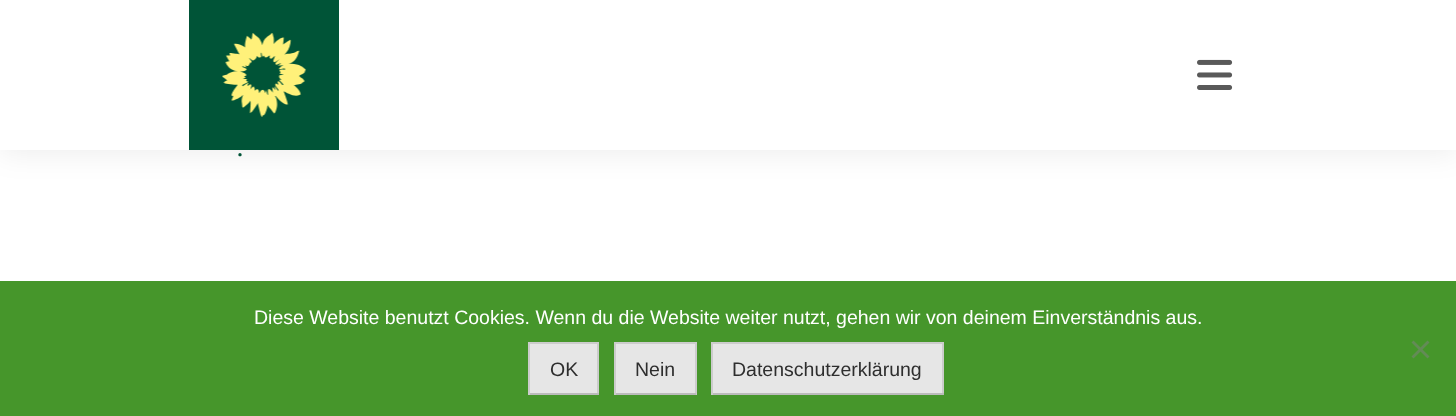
<svg xmlns="http://www.w3.org/2000/svg" width="1456" height="416">
<rect width="100%" height="100%" fill="#fff"/>
<rect y="2" width="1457" height="150" fill="#00000014" filter="blur(15px)"/>
<rect width="1456" height="150" fill="#fff"/>
<rect x="189" width="150" height="150" fill="#005437"/>
<image x="222" y="33" width="85" height="84" href="media/1.png"/>
<image x="1197" y="59" width="36" height="31" href="media/2.png"/>
<text x="237" y="156" style="font-family:PT Sans;font-size:28px;fill:#005437">.</text>
<rect y="281" width="1456" height="135" fill="#46962b"/>
<text x="254" y="324" style="font-family:Liberation Sans;font-size:19.5px;fill:#fff">Diese Website benutzt Cookies. Wenn du die Website weiter nutzt, gehen wir von deinem Einverständnis aus.</text>
<path d="M1427.5 340.5l2 2l-16 16l-2-2z" fill="#638b56"/>
<path d="M1411.5 342.5l2-2l16 16l-2 2z" fill="#638b56"/>
<rect x="530" y="344" width="67" height="49" fill="#e6e6e6"/>
<rect x="528" y="342" width="71" height="2" fill="#ccc"/>
<rect x="597" y="342" width="2" height="53" fill="#ccc"/>
<rect x="528" y="393" width="71" height="2" fill="#bbb"/>
<rect x="528" y="342" width="2" height="53" fill="#ccc"/>
<text x="550" y="376" style="font-family:Liberation Sans;font-size:19.5px;fill:#2e2e2e">OK</text>
<rect x="616" y="344" width="79" height="49" fill="#e6e6e6"/>
<rect x="614" y="342" width="82" height="2" fill="#ccc"/>
<rect x="695" y="342" width="2" height="53" fill="#ccc"/>
<rect x="614" y="393" width="82" height="2" fill="#bbb"/>
<rect x="614" y="342" width="2" height="53" fill="#ccc"/>
<text x="635" y="376" style="font-family:Liberation Sans;font-size:19.5px;fill:#2e2e2e">Nein</text>
<rect x="713" y="344" width="229" height="49" fill="#e6e6e6"/>
<rect x="711" y="342" width="233" height="2" fill="#ccc"/>
<rect x="942" y="342" width="2" height="53" fill="#ccc"/>
<rect x="711" y="393" width="233" height="2" fill="#bbb"/>
<rect x="711" y="342" width="2" height="53" fill="#ccc"/>
<text x="732" y="376" style="font-family:Liberation Sans;font-size:19.5px;fill:#2e2e2e">Datenschutzerklärung</text>
</svg>
